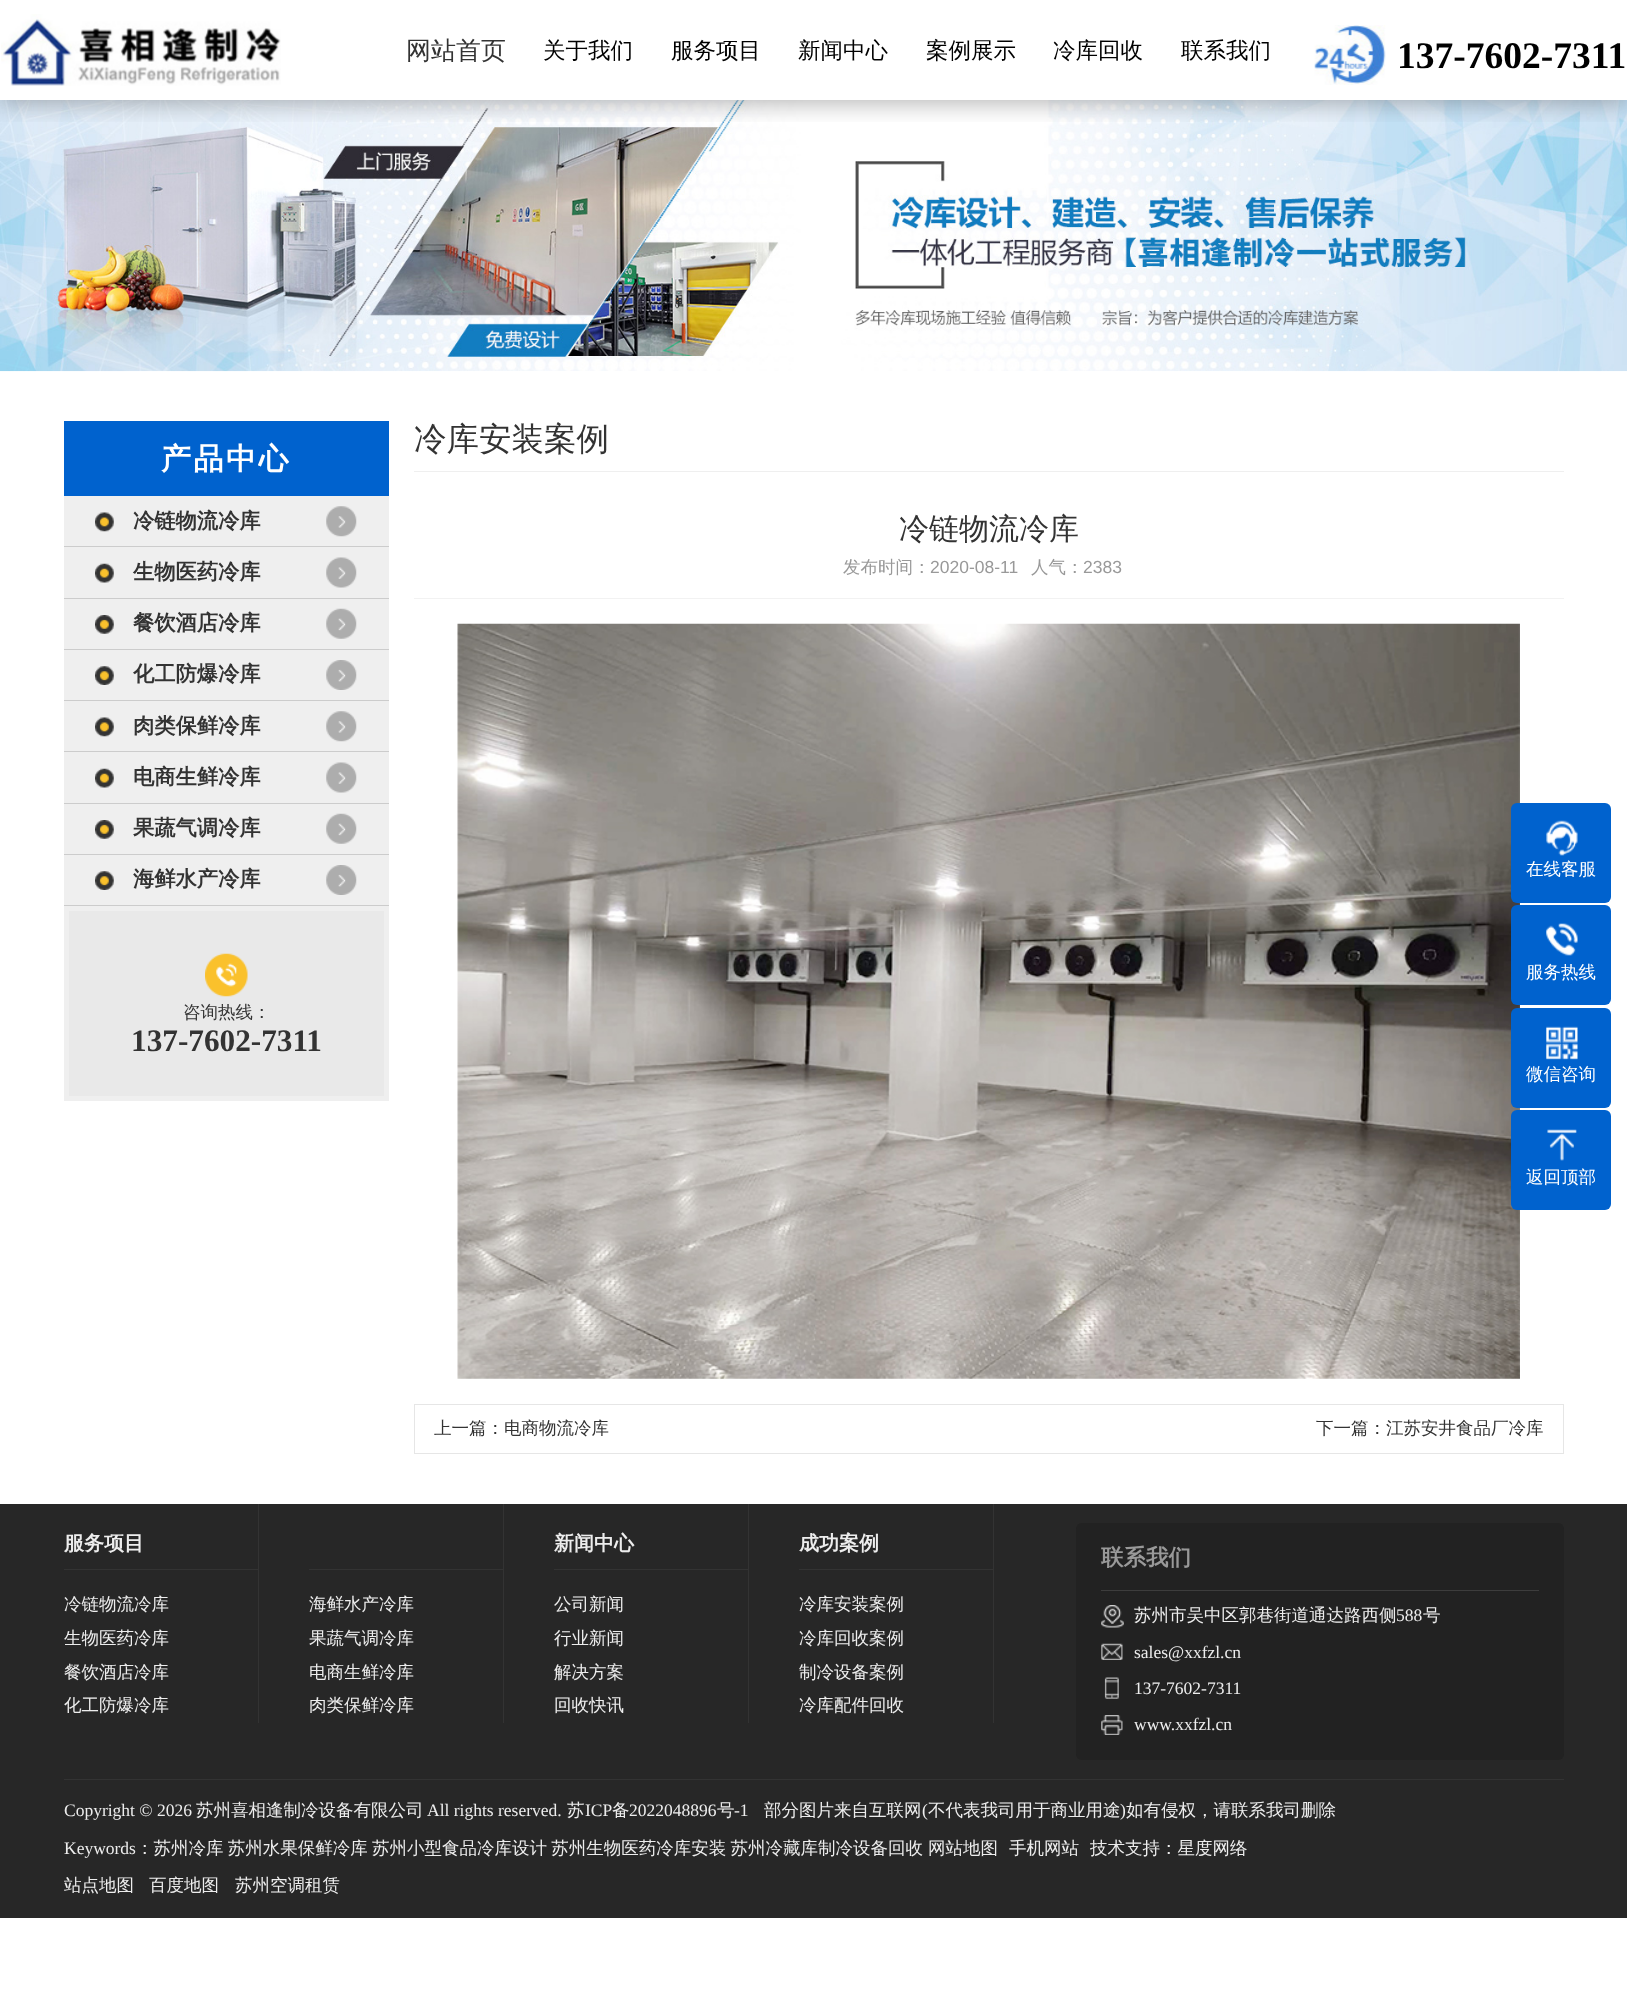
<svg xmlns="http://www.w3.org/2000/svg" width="1627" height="2012">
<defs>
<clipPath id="clip1"><rect x="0" y="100" width="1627" height="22"/></clipPath>
</defs>
<rect width="100%" height="100%" fill="#fff"/>
<image x="0" y="100" width="1627" height="272" href="media/3.png"/>
<g clip-path="url(#clip1)">
<rect y="3" width="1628" height="100" fill="#0000004d" filter="blur(12.5px)"/>
</g>
<image x="1" y="14" width="280" height="72" href="media/1.png"/>
<text x="406" y="59" style="font-family:WenQuanYi Zen Hei;font-size:25px;font-weight:500;fill:#333">网站首页</text>
<text x="543" y="58" style="font-family:WenQuanYi Zen Hei;font-size:22.5px;font-weight:500;fill:#000">关于我们</text>
<text x="671" y="58" style="font-family:WenQuanYi Zen Hei;font-size:22.5px;font-weight:500;fill:#000">服务项目</text>
<text x="798" y="58" style="font-family:WenQuanYi Zen Hei;font-size:22.5px;font-weight:500;fill:#000">新闻中心</text>
<text x="926" y="58" style="font-family:WenQuanYi Zen Hei;font-size:22.5px;font-weight:500;fill:#000">案例展示</text>
<text x="1053" y="58" style="font-family:WenQuanYi Zen Hei;font-size:22.5px;font-weight:500;fill:#000">冷库回收</text>
<text x="1181" y="58" style="font-family:WenQuanYi Zen Hei;font-size:22.5px;font-weight:500;fill:#000">联系我们</text>
<image x="1314" y="25" width="72" height="60" href="media/2.png"/>
<text x="1397" y="68" style="font-family:Liberation Serif;font-size:37.5px;font-weight:bold;fill:#000">137-7602-7311</text>
<rect x="64" y="496" width="325" height="605" fill="#efefef"/>
<rect x="64" y="421" width="325" height="75" fill="#0062ce"/>
<text x="161" y="469" style="font-family:WenQuanYi Zen Hei;font-size:30px;font-weight:bold;letter-spacing:2.5px;fill:#fff">产品中心</text>
<image x="326" y="506" width="31" height="31" href="media/4.png"/>
<rect x="64" y="546" width="325" height="1" fill="#ccc"/>
<image x="95" y="512" width="19" height="20" href="media/5.png"/>
<text x="133" y="528" style="font-family:WenQuanYi Zen Hei;font-size:21.25px;font-weight:bold;fill:#333">冷链物流冷库</text>
<image x="326" y="557" width="31" height="31" href="media/6.png"/>
<rect x="64" y="598" width="325" height="1" fill="#ccc"/>
<image x="95" y="563" width="19" height="20" href="media/7.png"/>
<text x="133" y="579" style="font-family:WenQuanYi Zen Hei;font-size:21.25px;font-weight:bold;fill:#333">生物医药冷库</text>
<image x="326" y="608" width="31" height="31" href="media/8.png"/>
<rect x="64" y="649" width="325" height="1" fill="#ccc"/>
<image x="95" y="615" width="19" height="19" href="media/9.png"/>
<text x="133" y="630" style="font-family:WenQuanYi Zen Hei;font-size:21.25px;font-weight:bold;fill:#333">餐饮酒店冷库</text>
<image x="326" y="660" width="31" height="30" href="media/10.png"/>
<rect x="64" y="700" width="325" height="1" fill="#ccc"/>
<image x="95" y="666" width="19" height="19" href="media/11.png"/>
<text x="133" y="681" style="font-family:WenQuanYi Zen Hei;font-size:21.25px;font-weight:bold;fill:#333">化工防爆冷库</text>
<image x="326" y="711" width="31" height="31" href="media/4.png"/>
<rect x="64" y="751" width="325" height="1" fill="#ccc"/>
<image x="95" y="717" width="19" height="20" href="media/12.png"/>
<text x="133" y="733" style="font-family:WenQuanYi Zen Hei;font-size:21.25px;font-weight:bold;fill:#333">肉类保鲜冷库</text>
<image x="326" y="762" width="31" height="31" href="media/6.png"/>
<rect x="64" y="803" width="325" height="1" fill="#ccc"/>
<image x="95" y="768" width="19" height="20" href="media/7.png"/>
<text x="133" y="784" style="font-family:WenQuanYi Zen Hei;font-size:21.25px;font-weight:bold;fill:#333">电商生鲜冷库</text>
<image x="326" y="813" width="31" height="31" href="media/8.png"/>
<rect x="64" y="854" width="325" height="1" fill="#ccc"/>
<image x="95" y="820" width="19" height="19" href="media/9.png"/>
<text x="133" y="835" style="font-family:WenQuanYi Zen Hei;font-size:21.25px;font-weight:bold;fill:#333">果蔬气调冷库</text>
<image x="326" y="865" width="31" height="30" href="media/10.png"/>
<rect x="64" y="905" width="325" height="1" fill="#ccc"/>
<image x="95" y="871" width="19" height="19" href="media/11.png"/>
<text x="133" y="886" style="font-family:WenQuanYi Zen Hei;font-size:21.25px;font-weight:bold;fill:#333">海鲜水产冷库</text>
<rect x="69" y="911" width="315" height="185" fill="#e9e9e9"/>
<image x="205" y="953" width="43" height="44" href="media/13.png"/>
<text x="183" y="1018" style="font-family:WenQuanYi Zen Hei;font-size:17.5px;font-weight:500;fill:#333">咨询热线：</text>
<text x="131" y="1051" style="font-family:Liberation Serif;font-size:31.25px;font-weight:bold;fill:#333">137-7602-7311</text>
<rect x="414" y="471" width="1150" height="1" fill="#efefef"/>
<text x="414" y="450" style="font-family:WenQuanYi Zen Hei;font-size:32.5px;font-weight:500;fill:#333">冷库安装案例</text>
<rect x="414" y="598" width="1150" height="1" fill="#f2f2f2"/>
<text x="899" y="539" style="font-family:WenQuanYi Zen Hei;font-size:30px;font-weight:500;fill:#333">冷链物流冷库</text>
<text x="843" y="573" style="font-family:WenQuanYi Zen Hei;font-size:17.5px;font-weight:500;fill:#999">发布时间：</text>
<text x="930" y="573" style="font-family:Liberation Sans;font-size:17.5px;fill:#999">2020-08-11</text>
<text x="1031" y="573" style="font-family:WenQuanYi Zen Hei;font-size:17.5px;font-weight:500;fill:#999">人气：</text>
<text x="1083" y="573" style="font-family:Liberation Sans;font-size:17.5px;fill:#999">2383</text>
<image x="457" y="623" width="1063" height="756" href="media/14.png"/>
<rect x="414.5" y="1404.5" width="1149" height="49" fill="none" stroke="#e6e6e6"/>
<text x="434" y="1434" style="font-family:WenQuanYi Zen Hei;font-size:17.5px;font-weight:500;fill:#333">上一篇：电商物流冷库</text>
<text x="1316" y="1434" style="font-family:WenQuanYi Zen Hei;font-size:17.5px;font-weight:500;fill:#333">下一篇：江苏安井食品厂冷库</text>
<rect x="1511" y="803" width="100" height="100" rx="6" fill="#0062ce"/>
<image x="1546" y="820" width="32" height="36" href="media/15.png"/>
<text x="1526" y="875" style="font-family:WenQuanYi Zen Hei;font-size:17.5px;font-weight:500;fill:#fff">在线客服</text>
<rect x="1511" y="905" width="100" height="100" rx="6" fill="#0062ce"/>
<image x="1546" y="923" width="32" height="33" href="media/16.png"/>
<text x="1526" y="978" style="font-family:WenQuanYi Zen Hei;font-size:17.5px;font-weight:500;fill:#fff">服务热线</text>
<rect x="1511" y="1008" width="100" height="100" rx="6" fill="#0062ce"/>
<image x="1546" y="1026" width="32" height="34" href="media/17.png"/>
<text x="1526" y="1080" style="font-family:WenQuanYi Zen Hei;font-size:17.5px;font-weight:500;fill:#fff">微信咨询</text>
<rect x="1511" y="1110" width="100" height="100" rx="6" fill="#0062ce"/>
<image x="1547" y="1129" width="30" height="32" href="media/18.png"/>
<text x="1526" y="1183" style="font-family:WenQuanYi Zen Hei;font-size:17.5px;font-weight:500;fill:#fff">返回顶部</text>
<rect y="1504" width="1627" height="414" fill="#272727"/>
<rect x="258" y="1504" width="1" height="219" fill="#333"/>
<rect x="64" y="1569" width="194" height="1" fill="#333"/>
<text x="64" y="1550" style="font-family:WenQuanYi Zen Hei;font-size:20px;font-weight:bold;fill:#ededed">服务项目</text>
<text x="64" y="1610" style="font-family:WenQuanYi Zen Hei;font-size:17.5px;font-weight:500;fill:#ededed">冷链物流冷库</text>
<text x="64" y="1644" style="font-family:WenQuanYi Zen Hei;font-size:17.5px;font-weight:500;fill:#ededed">生物医药冷库</text>
<text x="64" y="1678" style="font-family:WenQuanYi Zen Hei;font-size:17.5px;font-weight:500;fill:#ededed">餐饮酒店冷库</text>
<text x="64" y="1711" style="font-family:WenQuanYi Zen Hei;font-size:17.5px;font-weight:500;fill:#ededed">化工防爆冷库</text>
<rect x="503" y="1504" width="1" height="219" fill="#333"/>
<rect x="309" y="1569" width="194" height="1" fill="#333"/>
<text x="309" y="1610" style="font-family:WenQuanYi Zen Hei;font-size:17.5px;font-weight:500;fill:#ededed">海鲜水产冷库</text>
<text x="309" y="1644" style="font-family:WenQuanYi Zen Hei;font-size:17.5px;font-weight:500;fill:#ededed">果蔬气调冷库</text>
<text x="309" y="1678" style="font-family:WenQuanYi Zen Hei;font-size:17.5px;font-weight:500;fill:#ededed">电商生鲜冷库</text>
<text x="309" y="1711" style="font-family:WenQuanYi Zen Hei;font-size:17.5px;font-weight:500;fill:#ededed">肉类保鲜冷库</text>
<rect x="748" y="1504" width="1" height="219" fill="#333"/>
<rect x="554" y="1569" width="194" height="1" fill="#333"/>
<text x="554" y="1550" style="font-family:WenQuanYi Zen Hei;font-size:20px;font-weight:bold;fill:#ededed">新闻中心</text>
<text x="554" y="1610" style="font-family:WenQuanYi Zen Hei;font-size:17.5px;font-weight:500;fill:#ededed">公司新闻</text>
<text x="554" y="1644" style="font-family:WenQuanYi Zen Hei;font-size:17.5px;font-weight:500;fill:#ededed">行业新闻</text>
<text x="554" y="1678" style="font-family:WenQuanYi Zen Hei;font-size:17.5px;font-weight:500;fill:#ededed">解决方案</text>
<text x="554" y="1711" style="font-family:WenQuanYi Zen Hei;font-size:17.5px;font-weight:500;fill:#ededed">回收快讯</text>
<rect x="993" y="1504" width="1" height="219" fill="#333"/>
<rect x="799" y="1569" width="194" height="1" fill="#333"/>
<text x="799" y="1550" style="font-family:WenQuanYi Zen Hei;font-size:20px;font-weight:bold;fill:#ededed">成功案例</text>
<text x="799" y="1610" style="font-family:WenQuanYi Zen Hei;font-size:17.5px;font-weight:500;fill:#ededed">冷库安装案例</text>
<text x="799" y="1644" style="font-family:WenQuanYi Zen Hei;font-size:17.5px;font-weight:500;fill:#ededed">冷库回收案例</text>
<text x="799" y="1678" style="font-family:WenQuanYi Zen Hei;font-size:17.5px;font-weight:500;fill:#ededed">制冷设备案例</text>
<text x="799" y="1711" style="font-family:WenQuanYi Zen Hei;font-size:17.5px;font-weight:500;fill:#ededed">冷库配件回收</text>
<rect x="1076" y="1523" width="488" height="237" rx="6" fill="#222"/>
<rect x="1101" y="1590" width="438" height="1" fill="#3d3d3d"/>
<text x="1101" y="1565" style="font-family:WenQuanYi Zen Hei;font-size:22.5px;font-weight:bold;fill:#999">联系我们</text>
<image x="1101" y="1605" width="23" height="23" href="media/19.png"/>
<text x="1134" y="1621" style="font-family:WenQuanYi Zen Hei;font-size:17.5px;font-weight:500;fill:#ededed">苏州市吴中区郭巷街道通达路西侧</text>
<text x="1396" y="1621" style="font-family:Liberation Serif;font-size:17.5px;fill:#ededed">588</text>
<text x="1423" y="1621" style="font-family:WenQuanYi Zen Hei;font-size:17.5px;font-weight:500;fill:#ededed">号</text>
<image x="1101" y="1643" width="22" height="17" href="media/20.png"/>
<text x="1134" y="1658" style="font-family:Liberation Serif;font-size:17.5px;fill:#ededed">sales@xxfzl.cn</text>
<image x="1104" y="1677" width="15" height="22" href="media/21.png"/>
<text x="1134" y="1694" style="font-family:Liberation Serif;font-size:17.5px;fill:#ededed">137-7602-7311</text>
<image x="1101" y="1715" width="22" height="20" href="media/22.png"/>
<text x="1134" y="1730" style="font-family:Liberation Serif;font-size:17.5px;fill:#ededed">www.xxfzl.cn</text>
<rect x="64" y="1779" width="1500" height="1" fill="#333"/>
<text x="64" y="1816" style="font-family:Liberation Serif;font-size:17.5px;fill:#ededed">Copyright © 2026</text>
<text x="196" y="1816" style="font-family:WenQuanYi Zen Hei;font-size:17.5px;font-weight:500;fill:#ededed">苏州喜相逢制冷设备有限公司</text>
<text x="427" y="1816" style="font-family:Liberation Serif;font-size:17.5px;fill:#ededed">All rights reserved.</text>
<text x="567" y="1816" style="font-family:WenQuanYi Zen Hei;font-size:17.5px;font-weight:500;fill:#ededed">苏</text>
<text x="585" y="1816" style="font-family:Liberation Serif;font-size:17.5px;fill:#ededed">ICP</text>
<text x="612" y="1816" style="font-family:WenQuanYi Zen Hei;font-size:17.5px;font-weight:500;fill:#ededed">备</text>
<text x="629" y="1816" style="font-family:Liberation Serif;font-size:17.5px;fill:#ededed">2022048896</text>
<text x="717" y="1816" style="font-family:WenQuanYi Zen Hei;font-size:17.5px;font-weight:500;fill:#ededed">号</text>
<text x="734" y="1816" style="font-family:Liberation Serif;font-size:17.5px;fill:#ededed">-1</text>
<text x="764" y="1816" style="font-family:WenQuanYi Zen Hei;font-size:17.5px;font-weight:500;fill:#ededed">部分图片来自互联网</text>
<text x="922" y="1816" style="font-family:Liberation Serif;font-size:17.5px;fill:#ededed">(</text>
<text x="928" y="1816" style="font-family:WenQuanYi Zen Hei;font-size:17.5px;font-weight:500;fill:#ededed">不代表我司用于商业用途</text>
<text x="1120" y="1816" style="font-family:Liberation Serif;font-size:17.5px;fill:#ededed">)</text>
<text x="1126" y="1816" style="font-family:WenQuanYi Zen Hei;font-size:17.5px;font-weight:500;fill:#ededed">如有侵权，请联系我司删除</text>
<text x="64" y="1854" style="font-family:Liberation Serif;font-size:17.5px;fill:#ededed">Keywords</text>
<text x="136" y="1854" word-spacing="-1" style="font-family:WenQuanYi Zen Hei;font-size:17.5px;font-weight:500;fill:#ededed">：苏州冷库 苏州水果保鲜冷库 苏州小型食品冷库设计 苏州生物医药冷库安装 苏州冷藏库制冷设备回收</text>
<text x="928" y="1854" style="font-family:WenQuanYi Zen Hei;font-size:17.5px;font-weight:500;fill:#ededed">网站地图</text>
<text x="1009" y="1854" style="font-family:WenQuanYi Zen Hei;font-size:17.5px;font-weight:500;fill:#ededed">手机网站</text>
<text x="1090" y="1854" style="font-family:WenQuanYi Zen Hei;font-size:17.5px;font-weight:500;fill:#ededed">技术支持：星度网络</text>
<text x="64" y="1891" style="font-family:WenQuanYi Zen Hei;font-size:17.5px;font-weight:500;fill:#ededed">站点地图</text>
<text x="149" y="1891" style="font-family:WenQuanYi Zen Hei;font-size:17.5px;font-weight:500;fill:#ededed">百度地图</text>
<text x="235" y="1891" style="font-family:WenQuanYi Zen Hei;font-size:17.5px;font-weight:500;fill:#ededed">苏州空调租赁</text>
</svg>
